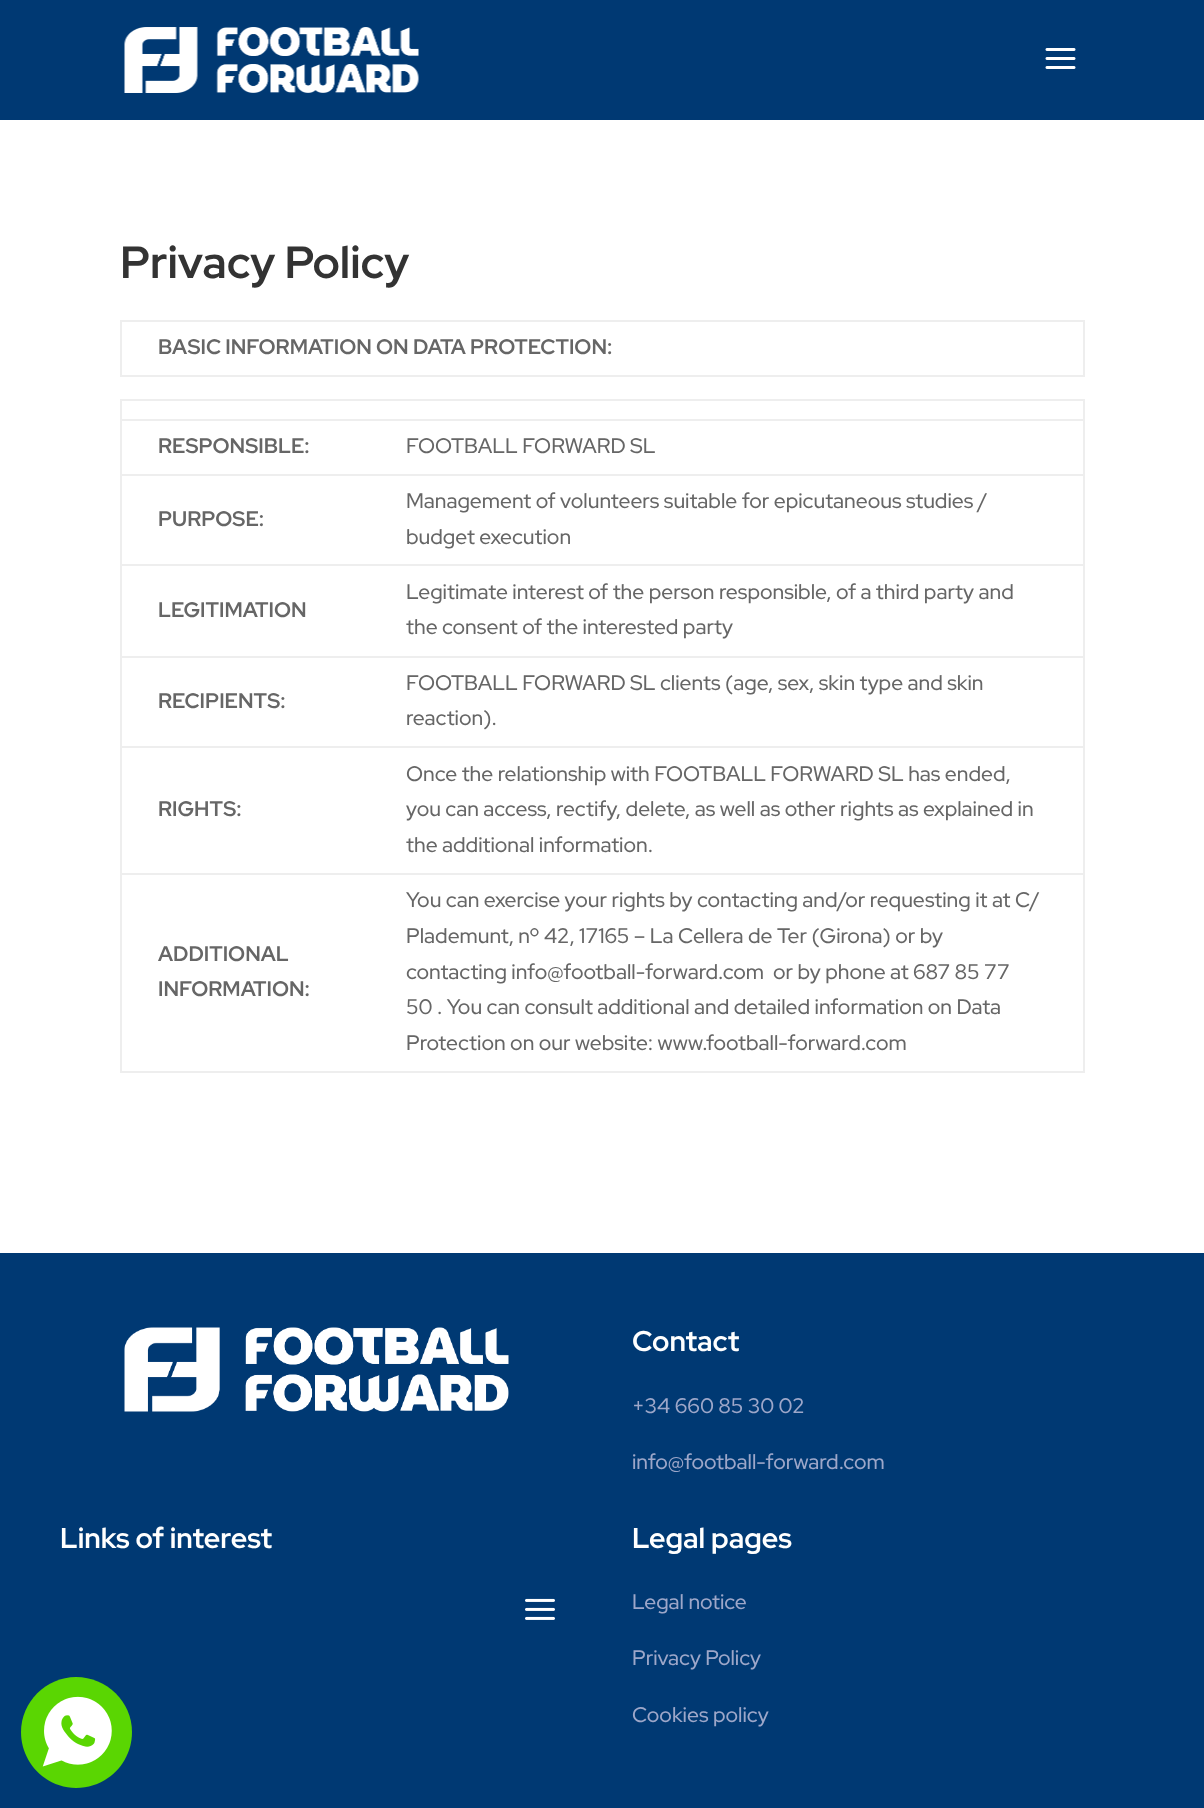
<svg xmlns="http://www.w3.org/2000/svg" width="1204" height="1808">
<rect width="100%" height="100%" fill="#fff"/>
<rect width="1204" height="120" fill="#003973"/>
<image x="124" y="27" width="295" height="66" href="media/1.png"/>
<image x="1045" y="48" width="31" height="21" href="media/2.png"/>
<text x="120" y="278" style="font-family:Red Hat Display;font-size:45px;font-weight:bold;fill:#333">Privacy Policy</text>
<rect x="120" y="320" width="965" height="2" fill="#eee"/>
<rect x="1083" y="320" width="2" height="57" fill="#eee"/>
<rect x="120" y="375" width="965" height="2" fill="#eee"/>
<rect x="120" y="320" width="2" height="57" fill="#eee"/>
<text x="158" y="354" style="font-family:Red Hat Display;font-size:21px;font-weight:bold;fill:#666">BASIC INFORMATION ON DATA PROTECTION:</text>
<rect x="120" y="399" width="965" height="2" fill="#eee"/>
<rect x="1083" y="399" width="2" height="674" fill="#eee"/>
<rect x="120" y="1071" width="965" height="2" fill="#eee"/>
<rect x="120" y="399" width="2" height="674" fill="#eee"/>
<text x="158" y="453" style="font-family:Red Hat Display;font-size:21px;font-weight:bold;fill:#666">RESPONSIBLE:</text>
<rect x="120" y="419" width="965" height="2" fill="#eee"/>
<text x="406" y="453" style="font-family:Red Hat Display;font-size:21px;font-weight:500;fill:#666">FOOTBALL FORWARD SL</text>
<text x="158" y="526" style="font-family:Red Hat Display;font-size:21px;font-weight:bold;fill:#666">PURPOSE:</text>
<rect x="120" y="474" width="965" height="2" fill="#eee"/>
<text x="406" y="508" style="font-family:Red Hat Display;font-size:21px;font-weight:500;fill:#666">Management of volunteers suitable for epicutaneous studies /</text>
<text x="406" y="544" style="font-family:Red Hat Display;font-size:21px;font-weight:500;fill:#666">budget execution</text>
<text x="158" y="617" style="font-family:Red Hat Display;font-size:21px;font-weight:bold;fill:#666">LEGITIMATION</text>
<rect x="120" y="564" width="965" height="2" fill="#eee"/>
<text x="406" y="599" style="font-family:Red Hat Display;font-size:21px;font-weight:500;fill:#666">Legitimate interest of the person responsible, of a third party and</text>
<text x="406" y="634" style="font-family:Red Hat Display;font-size:21px;font-weight:500;fill:#666">the consent of the interested party</text>
<text x="158" y="708" style="font-family:Red Hat Display;font-size:21px;font-weight:bold;fill:#666">RECIPIENTS:</text>
<rect x="120" y="656" width="965" height="2" fill="#eee"/>
<text x="406" y="690" style="font-family:Red Hat Display;font-size:21px;font-weight:500;fill:#666">FOOTBALL FORWARD SL clients (age, sex, skin type and skin</text>
<text x="406" y="725" style="font-family:Red Hat Display;font-size:21px;font-weight:500;fill:#666">reaction).</text>
<text x="158" y="816" style="font-family:Red Hat Display;font-size:21px;font-weight:bold;fill:#666">RIGHTS:</text>
<rect x="120" y="746" width="965" height="2" fill="#eee"/>
<text x="406" y="781" style="font-family:Red Hat Display;font-size:21px;font-weight:500;fill:#666">Once the relationship with FOOTBALL FORWARD SL has ended,</text>
<text x="406" y="816" style="font-family:Red Hat Display;font-size:21px;font-weight:500;fill:#666">you can access, rectify, delete, as well as other rights as explained in</text>
<text x="406" y="852" style="font-family:Red Hat Display;font-size:21px;font-weight:500;fill:#666">the additional information.</text>
<text x="158" y="961" style="font-family:Red Hat Display;font-size:21px;font-weight:bold;fill:#666">ADDITIONAL</text>
<text x="158" y="996" style="font-family:Red Hat Display;font-size:21px;font-weight:bold;fill:#666">INFORMATION:</text>
<rect x="120" y="873" width="965" height="2" fill="#eee"/>
<text x="406" y="907" style="font-family:Red Hat Display;font-size:21px;font-weight:500;fill:#666">You can exercise your rights by contacting and/or requesting it at C/</text>
<text x="406" y="943" style="font-family:Red Hat Display;font-size:21px;font-weight:500;fill:#666">Plademunt, nº 42, 17165 – La Cellera de Ter (Girona) or by</text>
<text x="406" y="979" style="font-family:Red Hat Display;font-size:21px;font-weight:500;fill:#666">contacting info@football-forward.com</text>
<text x="773" y="979" style="font-family:Red Hat Display;font-size:21px;font-weight:500;fill:#666">or by phone at 687 85 77</text>
<text x="406" y="1014" style="font-family:Red Hat Display;font-size:21px;font-weight:500;fill:#666">50 . You can consult additional and detailed information on Data</text>
<text x="406" y="1050" style="font-family:Red Hat Display;font-size:21px;font-weight:500;fill:#666">Protection on our website: www.football-forward.com</text>
<rect y="1253" width="1204" height="555" fill="#003973"/>
<image x="124" y="1327" width="385" height="85" href="media/3.png"/>
<text x="632" y="1351" style="font-family:Red Hat Display;font-size:28.5px;font-weight:bold;fill:#fff">Contact</text>
<text x="632" y="1413" style="font-family:Red Hat Display;font-size:21px;font-weight:500;fill:#9da7c9">+34 660 85 30 02</text>
<text x="632" y="1469" style="font-family:Red Hat Display;font-size:21px;font-weight:500;fill:#9da7c9">info@football-forward.com</text>
<text x="60" y="1548" style="font-family:Red Hat Display;font-size:28.5px;font-weight:bold;fill:#fff">Links of interest</text>
<image x="525" y="1598" width="30" height="22" href="media/4.png"/>
<text x="632" y="1548" style="font-family:Red Hat Display;font-size:28.5px;font-weight:bold;fill:#fff">Legal pages</text>
<text x="632" y="1609" style="font-family:Red Hat Display;font-size:21px;font-weight:500;fill:#9da7c9">Legal notice</text>
<text x="632" y="1665" style="font-family:Red Hat Display;font-size:21px;font-weight:500;fill:#9da7c9">Privacy Policy</text>
<text x="632" y="1722" style="font-family:Red Hat Display;font-size:21px;font-weight:500;fill:#9da7c9">Cookies policy</text>
<path d="M76 1677c31 0 56 25 56 55c0 31-25 56-56 56c-30 0-55-25-55-56c0-30 25-55 55-55z" fill="#5ad602"/>
<image x="42" y="1696" width="70" height="71" href="media/5.png"/>
</svg>
